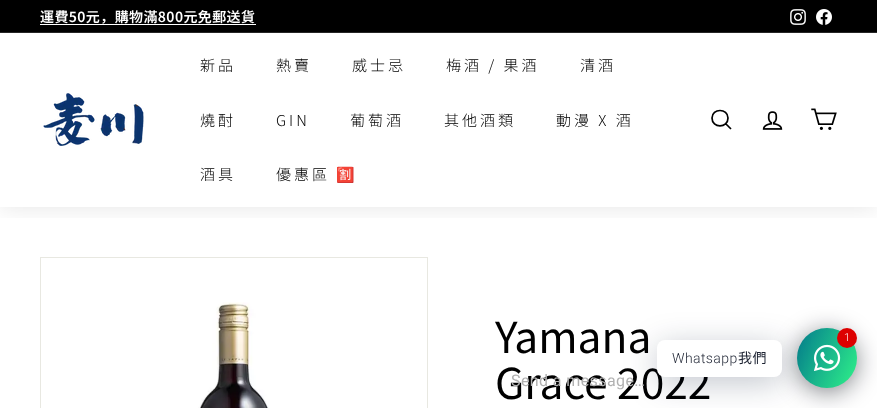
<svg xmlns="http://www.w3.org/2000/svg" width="877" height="408">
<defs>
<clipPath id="clip1"><rect x="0" y="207" width="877" height="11"/></clipPath>
<linearGradient id="g1" gradientUnits="userSpaceOnUse" x1="791" y1="341" x2="863" y2="375"><stop offset="0" stop-color="#047c8d"/><stop offset="1" stop-color="#2ff289"/></linearGradient>
</defs>
<rect width="100%" height="100%" fill="#fff"/>
<g clip-path="url(#clip1)">
<rect y="33" width="877" height="174" fill="#0000001a" filter="blur(12.5px)"/>
</g>
<rect width="877" height="32" fill="#000"/>
<text x="40" y="22" style="font-family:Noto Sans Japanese;font-size:14px;font-weight:600;letter-spacing:0.4px;fill:#fff">運費50元，購物滿800元免郵送貨</text>
<rect x="40" y="24" width="216" height="1" fill="#fff"/>
<image x="790" y="9" width="16" height="16" href="media/1.png"/>
<image x="816" y="9" width="16" height="16" href="media/2.png"/>
<rect y="32" width="877" height="1" fill="#262626"/>
<image x="43" y="93" width="101" height="53" href="media/3.png"/>
<text x="200" y="71" style="font-family:Noto Sans Japanese;font-size:15px;font-weight:300;letter-spacing:3px;fill:#000">新品</text>
<text x="276" y="71" style="font-family:Noto Sans Japanese;font-size:15px;font-weight:300;letter-spacing:3px;fill:#000">熱賣</text>
<text x="352" y="71" style="font-family:Noto Sans Japanese;font-size:15px;font-weight:300;letter-spacing:3px;fill:#000">威士忌</text>
<text x="446" y="71" style="font-family:Noto Sans Japanese;font-size:15px;font-weight:300;letter-spacing:3px;fill:#000">梅酒 / 果酒</text>
<text x="580" y="71" style="font-family:Noto Sans Japanese;font-size:15px;font-weight:300;letter-spacing:3px;fill:#000">清酒</text>
<text x="200" y="126" style="font-family:Noto Sans Japanese;font-size:15px;font-weight:300;letter-spacing:3px;fill:#000">燒酎</text>
<text x="276" y="126" style="font-family:Noto Sans Japanese;font-size:15px;font-weight:300;letter-spacing:3px;fill:#000">GIN</text>
<text x="350" y="126" style="font-family:Noto Sans Japanese;font-size:15px;font-weight:300;letter-spacing:3px;fill:#000">葡萄酒</text>
<text x="444" y="126" style="font-family:Noto Sans Japanese;font-size:15px;font-weight:300;letter-spacing:3px;fill:#000">其他酒類</text>
<text x="556" y="126" style="font-family:Noto Sans Japanese;font-size:15px;font-weight:300;letter-spacing:3px;fill:#000">動漫 X 酒</text>
<text x="200" y="180" style="font-family:Noto Sans Japanese;font-size:15px;font-weight:300;letter-spacing:3px;fill:#000">酒具</text>
<text x="276" y="180" style="font-family:Noto Sans Japanese;font-size:15px;font-weight:300;letter-spacing:3px;fill:#000">優惠區</text>
<text x="336" y="180" style="font-family:Noto Color Emoji;font-size:15px;letter-spacing:3px;fill:#000">🈹</text>
<path d="M728 118c0 10.5-16 10.5-16 0c0-10 16-10 16 0zm3 11l-5.5-5.5" fill="none" stroke="#000" stroke-width="1.7"/>
<image x="762" y="111" width="21" height="19" href="media/4.png"/>
<image x="811" y="108" width="26" height="22" href="media/5.png"/>
<rect x="40.5" y="257.5" width="387" height="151" fill="none" stroke="#e8e8e1"/>
<image x="198" y="302" width="71" height="106" href="media/6.png"/>
<text x="495" y="353" style="font-family:Noto Sans Japanese;font-size:42.5px;fill:#000">Yamana</text>
<text x="495" y="399" style="font-family:Noto Sans Japanese;font-size:42.5px;fill:#000">Grace 2022</text>
<rect x="797" y="332" width="60" height="60" rx="30" fill="#02061080" filter="blur(12px)"/>
<circle cx="827" cy="358" r="30" fill="url(#g1)"/>
<rect x="657" y="346" width="125" height="37" rx="8" fill="#00122e3d" filter="blur(16px)"/>
<image x="814" y="344" width="27" height="27" href="media/7.png"/>
<circle cx="847" cy="338" r="10" fill="#d00"/>
<text x="844" y="341" style="font-family:Roboto;font-size:11px;font-weight:300;letter-spacing:0.4px;fill:#fff">1</text>
<rect x="657" y="340" width="125" height="37" rx="8" fill="#fff"/>
<text x="672" y="363" style="font-family:Roboto;font-size:14px;font-weight:300;letter-spacing:0.4px;fill:#1e2433">Whatsapp</text>
<text x="738" y="363" style="font-family:Noto Sans CJK TC;font-size:14px;letter-spacing:0.4px;fill:#1e2433">我們</text>
<text x="511" y="386" style="font-family:Roboto;font-size:16px;letter-spacing:0.4px;fill:#b1b1b1">Send a message…</text>
</svg>
